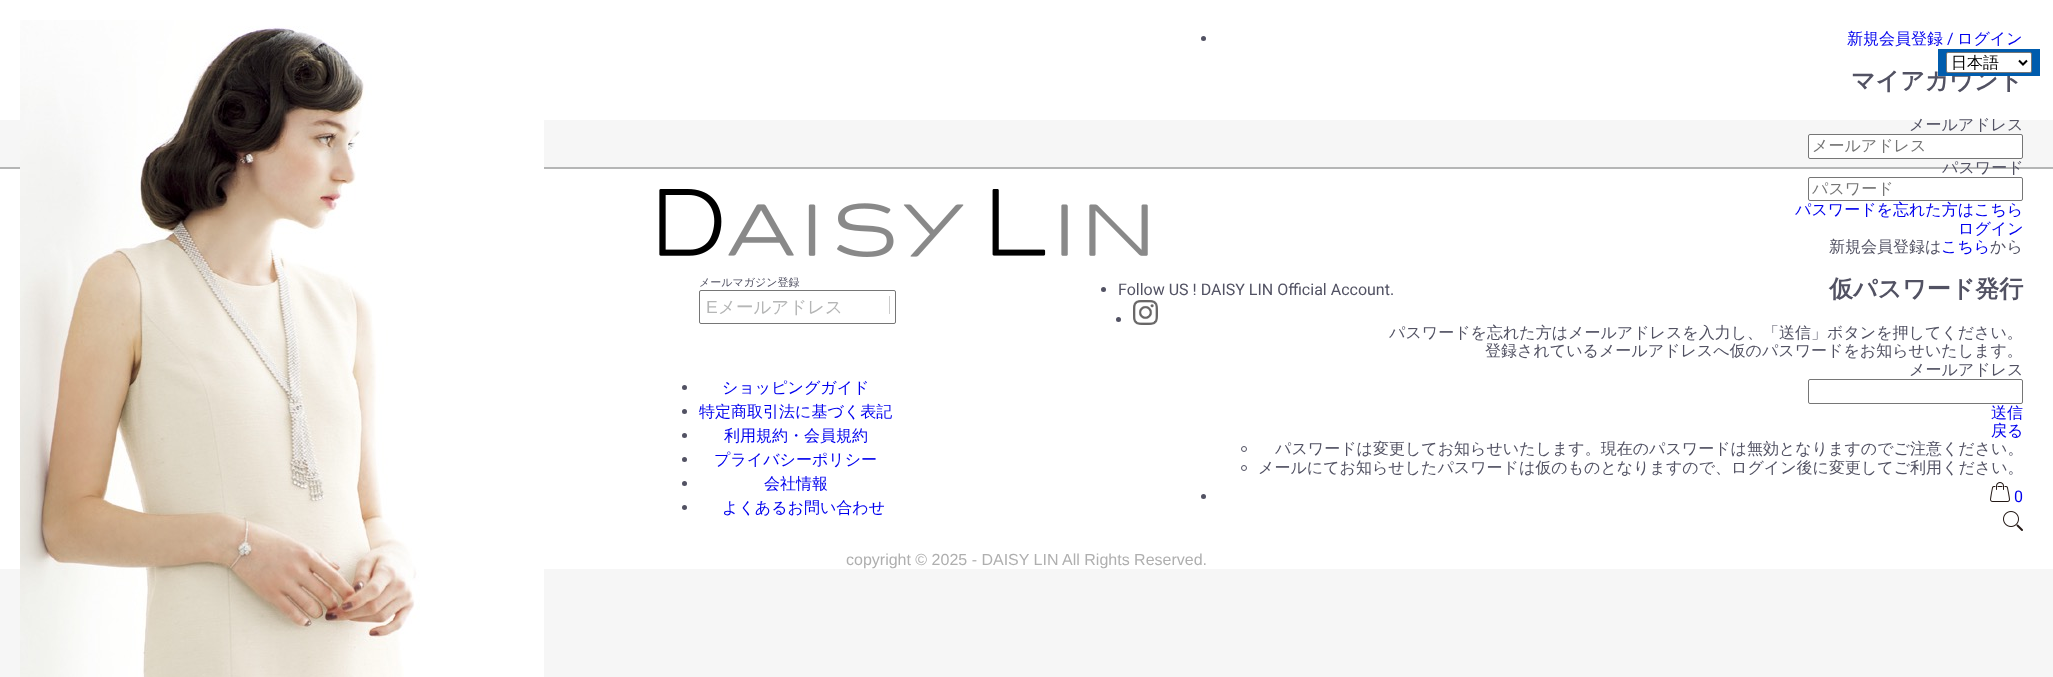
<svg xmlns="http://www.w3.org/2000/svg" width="2053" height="677">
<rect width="100%" height="100%" fill="#f6f6f6"/>
<rect y="169" width="2053" height="400" fill="#fff"/>
<rect y="167" width="2053" height="2" fill="#b5b6b6"/>
<image x="659" y="189" width="489" height="68" href="media/1.png"/>
<text x="699" y="286" style="font-family:WenQuanYi Zen Hei;font-size:11px;font-weight:500;fill:#525263">メールマガジン登録</text>
<rect x="699.5" y="290.5" width="196" height="33" rx="1.5" fill="none" stroke="#767676"/>
<text x="706" y="313" style="font-family:Liberation Sans;font-size:17.5px;fill:#b5b6b6">E</text>
<text x="718" y="313" style="font-family:WenQuanYi Zen Hei;font-size:17.5px;font-weight:500;fill:#b5b6b6">メールアドレス</text>
<rect x="889" y="296" width="1" height="18" fill="#ccc"/>
<circle cx="1103.5" cy="289.5" r="2.5" fill="#525263"/>
<text x="1118" y="295" style="font-family:Roboto;font-size:16px;fill:#525263">Follow US ! DAISY LIN Official Account.</text>
<circle cx="1118.5" cy="319.5" r="2.5" fill="#525263"/>
<image x="1133" y="300" width="25" height="25" href="media/2.png"/>
<circle cx="684.5" cy="387.5" r="2.5" fill="#525263"/>
<text x="722" y="393" style="font-family:WenQuanYi Zen Hei;font-size:16px;font-weight:500;fill:#00e">ショッピングガイド</text>
<circle cx="684.5" cy="411.5" r="2.5" fill="#525263"/>
<text x="699" y="417" style="font-family:WenQuanYi Zen Hei;font-size:16px;font-weight:500;fill:#00e">特定商取引法に基づく表記</text>
<circle cx="684.5" cy="435.5" r="2.5" fill="#525263"/>
<text x="724" y="441" style="font-family:WenQuanYi Zen Hei;font-size:16px;font-weight:500;fill:#00e">利用規約・会員規約</text>
<circle cx="684.5" cy="459.5" r="2.5" fill="#525263"/>
<text x="714" y="465" style="font-family:WenQuanYi Zen Hei;font-size:16px;font-weight:500;fill:#00e">プライバシーポリシー</text>
<circle cx="684.5" cy="483.5" r="2.5" fill="#525263"/>
<text x="764" y="489" style="font-family:WenQuanYi Zen Hei;font-size:16px;font-weight:500;fill:#00e">会社情報</text>
<circle cx="684.5" cy="507.5" r="2.5" fill="#525263"/>
<text x="722" y="513" style="font-family:WenQuanYi Zen Hei;font-size:16px;font-weight:500;fill:#00e">よくあるお問い合わせ</text>
<text x="846" y="565" style="font-family:Liberation Sans;font-size:16px;fill:#afafaf">copyright © 2025 - DAISY LIN All Rights Reserved.</text>
<rect width="2053" height="120" fill="#fff"/>
<image x="20" y="20" width="524" height="657" href="media/3.png"/>
<circle cx="1203.5" cy="38.5" r="2.5" fill="#525263"/>
<text x="1847" y="44" style="font-family:WenQuanYi Zen Hei;font-size:16px;font-weight:500;fill:#00e">新規会員登録</text>
<text x="1947" y="44" style="font-family:Roboto;font-size:16px;fill:#00e">/</text>
<text x="1957" y="44" style="font-family:WenQuanYi Zen Hei;font-size:16px;font-weight:500;fill:#00e">ログイン</text>
<text x="1851" y="89" style="font-family:WenQuanYi Zen Hei;font-size:24px;font-weight:bold;fill:#525263">マイアカウント</text>
<text x="1909" y="130" style="font-family:WenQuanYi Zen Hei;font-size:16px;font-weight:500;fill:#525263">メールアドレス</text>
<rect x="1808.5" y="134.5" width="214" height="24" rx="1.5" fill="#fff" stroke="#767676"/>
<text x="1812" y="151" style="font-family:WenQuanYi Zen Hei;font-size:16px;font-weight:500;fill:#757575">メールアドレス</text>
<text x="1942" y="173" style="font-family:WenQuanYi Zen Hei;font-size:16px;font-weight:500;fill:#525263">パスワード</text>
<rect x="1808.5" y="177.5" width="214" height="23" rx="1.5" fill="none" stroke="#767676"/>
<text x="1812" y="194" style="font-family:WenQuanYi Zen Hei;font-size:16px;font-weight:500;fill:#757575">パスワード</text>
<text x="1795" y="215" style="font-family:WenQuanYi Zen Hei;font-size:16px;font-weight:500;fill:#00e">パスワードを忘れた方はこちら</text>
<text x="1958" y="234" style="font-family:WenQuanYi Zen Hei;font-size:16px;font-weight:500;fill:#00e">ログイン</text>
<text x="1829" y="252" style="font-family:WenQuanYi Zen Hei;font-size:16px;font-weight:500;fill:#525263">新規会員登録は</text>
<text x="1941" y="252" style="font-family:WenQuanYi Zen Hei;font-size:16px;font-weight:500;fill:#00e">こちら</text>
<text x="1990" y="252" style="font-family:WenQuanYi Zen Hei;font-size:16px;font-weight:500;fill:#525263">から</text>
<text x="1829" y="297" style="font-family:WenQuanYi Zen Hei;font-size:24px;font-weight:bold;fill:#525263">仮パスワード発行</text>
<text x="1389" y="338" style="font-family:WenQuanYi Zen Hei;font-size:16px;font-weight:500;fill:#525263">パスワードを忘れた方はメールアドレスを入力し、「送信」ボタンを押してください。</text>
<text x="1485" y="356" style="font-family:WenQuanYi Zen Hei;font-size:16px;font-weight:500;fill:#525263">登録されているメールアドレスへ仮のパスワードをお知らせいたします。</text>
<text x="1909" y="375" style="font-family:WenQuanYi Zen Hei;font-size:16px;font-weight:500;fill:#525263">メールアドレス</text>
<rect x="1808.5" y="379.5" width="214" height="24" rx="1.5" fill="none" stroke="#767676"/>
<text x="1991" y="418" style="font-family:WenQuanYi Zen Hei;font-size:16px;font-weight:500;fill:#00e">送信</text>
<text x="1991" y="436" style="font-family:WenQuanYi Zen Hei;font-size:16px;font-weight:500;fill:#00e">戻る</text>
<circle cx="1244" cy="449" r="2.5" fill="none" stroke="#525263"/>
<text x="1275" y="454" style="font-family:WenQuanYi Zen Hei;font-size:16px;font-weight:500;fill:#525263">パスワードは変更してお知らせいたします。現在のパスワードは無効となりますのでご注意ください。</text>
<circle cx="1244" cy="468" r="2.5" fill="none" stroke="#525263"/>
<text x="1258" y="473" style="font-family:WenQuanYi Zen Hei;font-size:16px;font-weight:500;fill:#525263">メールにてお知らせしたパスワードは仮のものとなりますので、ログイン後に変更してご利用ください。</text>
<circle cx="1203.5" cy="496.5" r="2.5" fill="#525263"/>
<image x="1990" y="482" width="20" height="20" href="media/4.png"/>
<text x="2014" y="502" style="font-family:Roboto;font-size:16px;fill:#00e">0</text>
<image x="2003" y="511" width="20" height="20" href="media/5.png"/>
<rect x="1938" y="49" width="102" height="27" fill="#005cad"/>
<rect x="1946.5" y="52.5" width="85" height="20" rx="1.5" fill="#fff" stroke="#767676"/>
<path d="M2019 60.5l4 4l4-4" fill="none" stroke="#000" stroke-width="2"/>
<text x="1951" y="68" style="font-family:WenQuanYi Zen Hei;font-size:16px;font-weight:500;fill:#000">日本語</text>
</svg>
